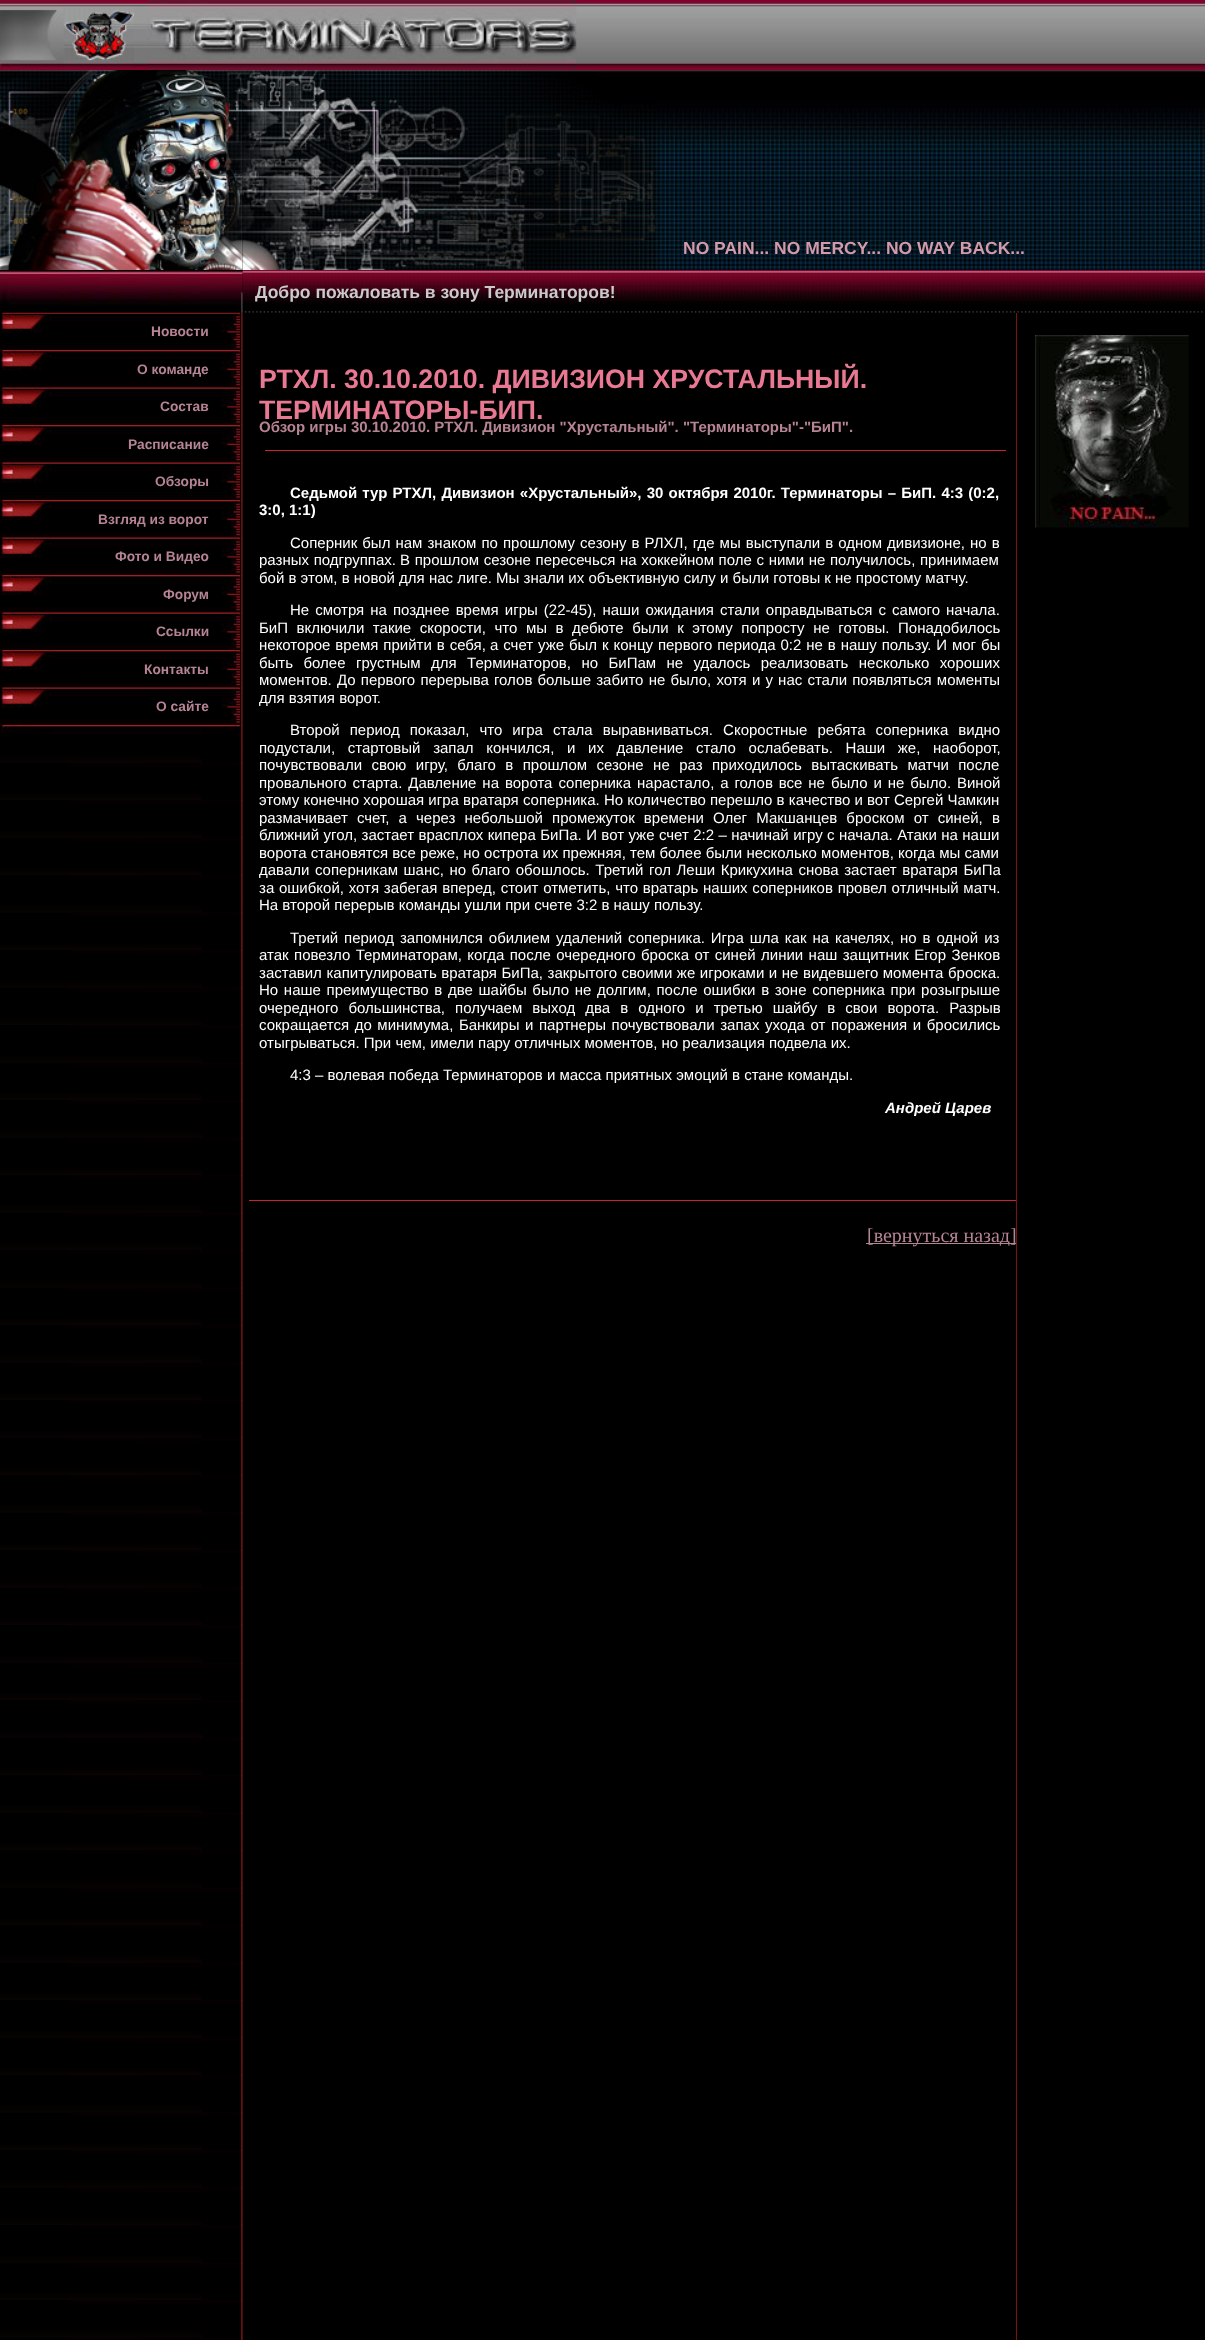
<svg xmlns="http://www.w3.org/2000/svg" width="1205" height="2340">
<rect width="100%" height="100%" fill="#000"/>
<image x="62" y="0" width="1143" height="77" href="media/1.png"/>
<image x="0" y="0" width="63" height="70" href="media/2.png"/>
<image x="63" y="2" width="85" height="68" href="media/3.png"/>
<image x="63" y="2" width="71" height="66" href="media/4.png"/>
<image x="147" y="0" width="430" height="70" href="media/5.png"/>
<image x="0" y="70" width="596" height="29" href="media/6.png"/>
<image x="0" y="98" width="243" height="172" href="media/7.png"/>
<image x="657" y="99" width="548" height="171" href="media/9.png"/>
<image x="242" y="98" width="416" height="172" href="media/8.png"/>
<text x="683" y="254" style="font-family:Liberation Sans;font-size:17.5px;font-weight:bold;fill:#d39aaa">NO PAIN... NO MERCY... NO WAY BACK...</text>
<image x="242" y="270" width="963" height="43" href="media/11.png"/>
<image x="0" y="312" width="243" height="2028" href="media/12.png"/>
<image x="1" y="312" width="239" height="38" href="media/13.png"/>
<image x="0" y="271" width="243" height="42" href="media/10.png"/>
<text x="255" y="298" style="font-family:Liberation Sans;font-size:17.5px;font-weight:bold;fill:#cbcaca">Добро пожаловать в зону Терминаторов!</text>
<text x="151" y="336" style="font-family:Liberation Sans;font-size:13.75px;font-weight:bold;fill:#b68493">Новости</text>
<image x="1" y="350" width="239" height="38" href="media/14.png"/>
<text x="137" y="374" style="font-family:Liberation Sans;font-size:13.75px;font-weight:bold;fill:#b68493">О команде</text>
<image x="1" y="387" width="239" height="38" href="media/15.png"/>
<text x="160" y="411" style="font-family:Liberation Sans;font-size:13.75px;font-weight:bold;fill:#b68493">Состав</text>
<image x="1" y="425" width="239" height="38" href="media/16.png"/>
<text x="128" y="449" style="font-family:Liberation Sans;font-size:13.75px;font-weight:bold;fill:#b68493">Расписание</text>
<image x="1" y="462" width="239" height="38" href="media/17.png"/>
<text x="155" y="486" style="font-family:Liberation Sans;font-size:13.75px;font-weight:bold;fill:#b68493">Обзоры</text>
<image x="1" y="500" width="239" height="38" href="media/14.png"/>
<text x="98" y="524" style="font-family:Liberation Sans;font-size:13.75px;font-weight:bold;fill:#b68493">Взгляд из ворот</text>
<image x="1" y="537" width="239" height="38" href="media/15.png"/>
<text x="115" y="561" style="font-family:Liberation Sans;font-size:13.75px;font-weight:bold;fill:#b68493">Фото и Видео</text>
<image x="1" y="575" width="239" height="38" href="media/18.png"/>
<text x="163" y="599" style="font-family:Liberation Sans;font-size:13.75px;font-weight:bold;fill:#b68493">Форум</text>
<image x="1" y="612" width="239" height="38" href="media/15.png"/>
<text x="156" y="636" style="font-family:Liberation Sans;font-size:13.75px;font-weight:bold;fill:#b68493">Ссылки</text>
<image x="1" y="650" width="239" height="38" href="media/16.png"/>
<text x="144" y="674" style="font-family:Liberation Sans;font-size:13.75px;font-weight:bold;fill:#b68493">Контакты</text>
<image x="1" y="687" width="239" height="38" href="media/17.png"/>
<text x="156" y="711" style="font-family:Liberation Sans;font-size:13.75px;font-weight:bold;fill:#b68493">О сайте</text>
<image x="1" y="725" width="239" height="10" href="media/19.png"/>
<text x="259" y="388" style="font-family:Liberation Sans;font-size:26.7px;font-weight:bold;fill:#e97892">РТХЛ. 30.10.2010. ДИВИЗИОН ХРУСТАЛЬНЫЙ.</text>
<text x="259" y="419" style="font-family:Liberation Sans;font-size:26.7px;font-weight:bold;fill:#e97892">ТЕРМИНАТОРЫ-БИП.</text>
<text x="259" y="432" style="font-family:Liberation Sans;font-size:15px;font-weight:bold;fill:#b68493">Обзор игры 30.10.2010. РТХЛ. Дивизион "Хрустальный". "Терминаторы"-"БиП".</text>
<rect x="265" y="450" width="741" height="1" fill="#ca2233"/>
<text x="290" y="498" word-spacing="1" style="font-family:Liberation Sans;font-size:15px;font-weight:bold;fill:#fff">Седьмой тур РТХЛ, Дивизион «Хрустальный», 30 октября 2010г. Терминаторы – БиП. 4:3 (0:2,</text>
<text x="259" y="515" style="font-family:Liberation Sans;font-size:15px;font-weight:bold;fill:#fff">3:0, 1:1)</text>
<text x="290" y="548" word-spacing="0.9" style="font-family:Liberation Sans;font-size:15px;fill:#fff">Соперник был нам знаком по прошлому сезону в РЛХЛ, где мы выступали в одном дивизионе, но в</text>
<text x="259" y="565" word-spacing="0.5" style="font-family:Liberation Sans;font-size:15px;fill:#fff">разных подгруппах.</text>
<text x="400" y="565" word-spacing="0.5" style="font-family:Liberation Sans;font-size:15px;fill:#fff">В прошлом сезоне пересечься на хоккейном поле с ними не получилось, принимаем</text>
<text x="259" y="583" style="font-family:Liberation Sans;font-size:15px;fill:#fff">бой в этом, в новой для нас лиге. Мы знали их объективную силу и были готовы к не простому матчу.</text>
<text x="290" y="615" word-spacing="1.9" style="font-family:Liberation Sans;font-size:15px;fill:#fff">Не смотря на позднее время игры (22-45), наши ожидания стали оправдываться с самого начала.</text>
<text x="259" y="633" word-spacing="4.4" style="font-family:Liberation Sans;font-size:15px;fill:#fff">БиП включили такие скорости, что мы в дебюте были к этому попросту не готовы. Понадобилось</text>
<text x="259" y="650" word-spacing="0.75" style="font-family:Liberation Sans;font-size:15px;fill:#fff">некоторое время прийти в себя,</text>
<text x="490" y="650" word-spacing="0.75" style="font-family:Liberation Sans;font-size:15px;fill:#fff">а счет уже был к концу первого периода 0:2 не в нашу пользу. И мог бы</text>
<text x="259" y="668" word-spacing="6.25" style="font-family:Liberation Sans;font-size:15px;fill:#fff">быть более грустным для Терминаторов, но БиПам не удалось реализовать несколько хороших</text>
<text x="259" y="685" word-spacing="1" style="font-family:Liberation Sans;font-size:15px;fill:#fff">моментов. До первого перерыва голов больше забито не было, хотя и у нас стали появляться моменты</text>
<text x="259" y="703" style="font-family:Liberation Sans;font-size:15px;fill:#fff">для взятия ворот.</text>
<text x="290" y="735" word-spacing="5.9" style="font-family:Liberation Sans;font-size:15px;fill:#fff">Второй период показал, что игра стала выравниваться. Скоростные ребята соперника видно</text>
<text x="259" y="753" word-spacing="8.5" style="font-family:Liberation Sans;font-size:15px;fill:#fff">подустали, стартовый запал кончился, и их давление стало ослабевать. Наши же, наоборот,</text>
<text x="259" y="770" word-spacing="5.25" style="font-family:Liberation Sans;font-size:15px;fill:#fff">почувствовали свою игру, благо в прошлом сезоне не раз приходилось вытаскивать матчи после</text>
<text x="259" y="788" word-spacing="1.75" style="font-family:Liberation Sans;font-size:15px;fill:#fff">провального старта. Давление на ворота соперника нарастало, а голов все не было и не было. Виной</text>
<text x="259" y="805" style="font-family:Liberation Sans;font-size:15px;fill:#fff">этому конечно хорошая игра вратаря соперника. Но количество перешло в качество и вот Сергей Чамкин</text>
<text x="259" y="823" word-spacing="5" style="font-family:Liberation Sans;font-size:15px;fill:#fff">размачивает счет, а через небольшой промежуток времени Олег Макшанцев броском от синей, в</text>
<text x="259" y="840" word-spacing="0.25" style="font-family:Liberation Sans;font-size:15px;fill:#fff">ближний угол, застает врасплох кипера БиПа. И вот уже счет 2:2 – начинай игру с начала. Атаки на наши</text>
<text x="259" y="858" style="font-family:Liberation Sans;font-size:15px;fill:#fff">ворота становятся все реже, но острота их прежняя, тем более были несколько моментов, когда мы сами</text>
<text x="259" y="875" word-spacing="1.4" style="font-family:Liberation Sans;font-size:15px;fill:#fff">давали соперникам шанс, но благо обошлось. Третий гол Леши Крикухина снова застает вратаря БиПа</text>
<text x="259" y="893" word-spacing="0.6" style="font-family:Liberation Sans;font-size:15px;fill:#fff">за ошибкой, хотя забегая вперед, стоит отметить, что вратарь наших соперников провел отличный матч.</text>
<text x="259" y="910" style="font-family:Liberation Sans;font-size:15px;fill:#fff">На второй перерыв команды ушли при счете 3:2 в нашу пользу.</text>
<text x="290" y="943" word-spacing="1.75" style="font-family:Liberation Sans;font-size:15px;fill:#fff">Третий период запомнился обилием удалений соперника. Игра шла как на качелях, но в одной из</text>
<text x="259" y="960" word-spacing="1.25" style="font-family:Liberation Sans;font-size:15px;fill:#fff">атак повезло Терминаторам, когда после очередного броска от синей линии наш защитник Егор Зенков</text>
<text x="259" y="978" word-spacing="0.4" style="font-family:Liberation Sans;font-size:15px;fill:#fff">заставил капитулировать вратаря БиПа, закрытого своими же игроками и не видевшего момента броска.</text>
<text x="259" y="995" word-spacing="1.5" style="font-family:Liberation Sans;font-size:15px;fill:#fff">Но наше преимущество в две шайбы было не долгим, после ошибки в зоне соперника при розыгрыше</text>
<text x="259" y="1013" word-spacing="5.9" style="font-family:Liberation Sans;font-size:15px;fill:#fff">очередного большинства, получаем выход два в одного и третью шайбу в свои ворота. Разрыв</text>
<text x="259" y="1030" word-spacing="1.4" style="font-family:Liberation Sans;font-size:15px;fill:#fff">сокращается до минимума, Банкиры и партнеры почувствовали запах ухода от поражения и бросились</text>
<text x="259" y="1048" style="font-family:Liberation Sans;font-size:15px;fill:#fff">отыгрываться. При чем, имели пару отличных моментов, но реализация подвела их.</text>
<text x="290" y="1080" style="font-family:Liberation Sans;font-size:15px;fill:#fff">4:3 – волевая победа Терминаторов и масса приятных эмоций в стане команды.</text>
<text x="885" y="1113" style="font-family:Liberation Sans;font-size:15px;font-weight:bold;font-style:italic;fill:#fff">Андрей Царев</text>
<rect x="249" y="1200" width="774" height="1" fill="#ca2233"/>
<rect x="866" y="1243" width="150" height="1" fill="#b68493"/>
<text x="867" y="1242" style="font-family:Liberation Serif;font-size:20px;fill:#b68493">[вернуться назад]</text>
<rect x="1017" y="1200" width="6" height="1" fill="#000"/>
<rect x="1016" y="313" width="1" height="2027" fill="#7b1311"/>
<image x="1035" y="335" width="154" height="193" href="media/20.png"/>
</svg>
